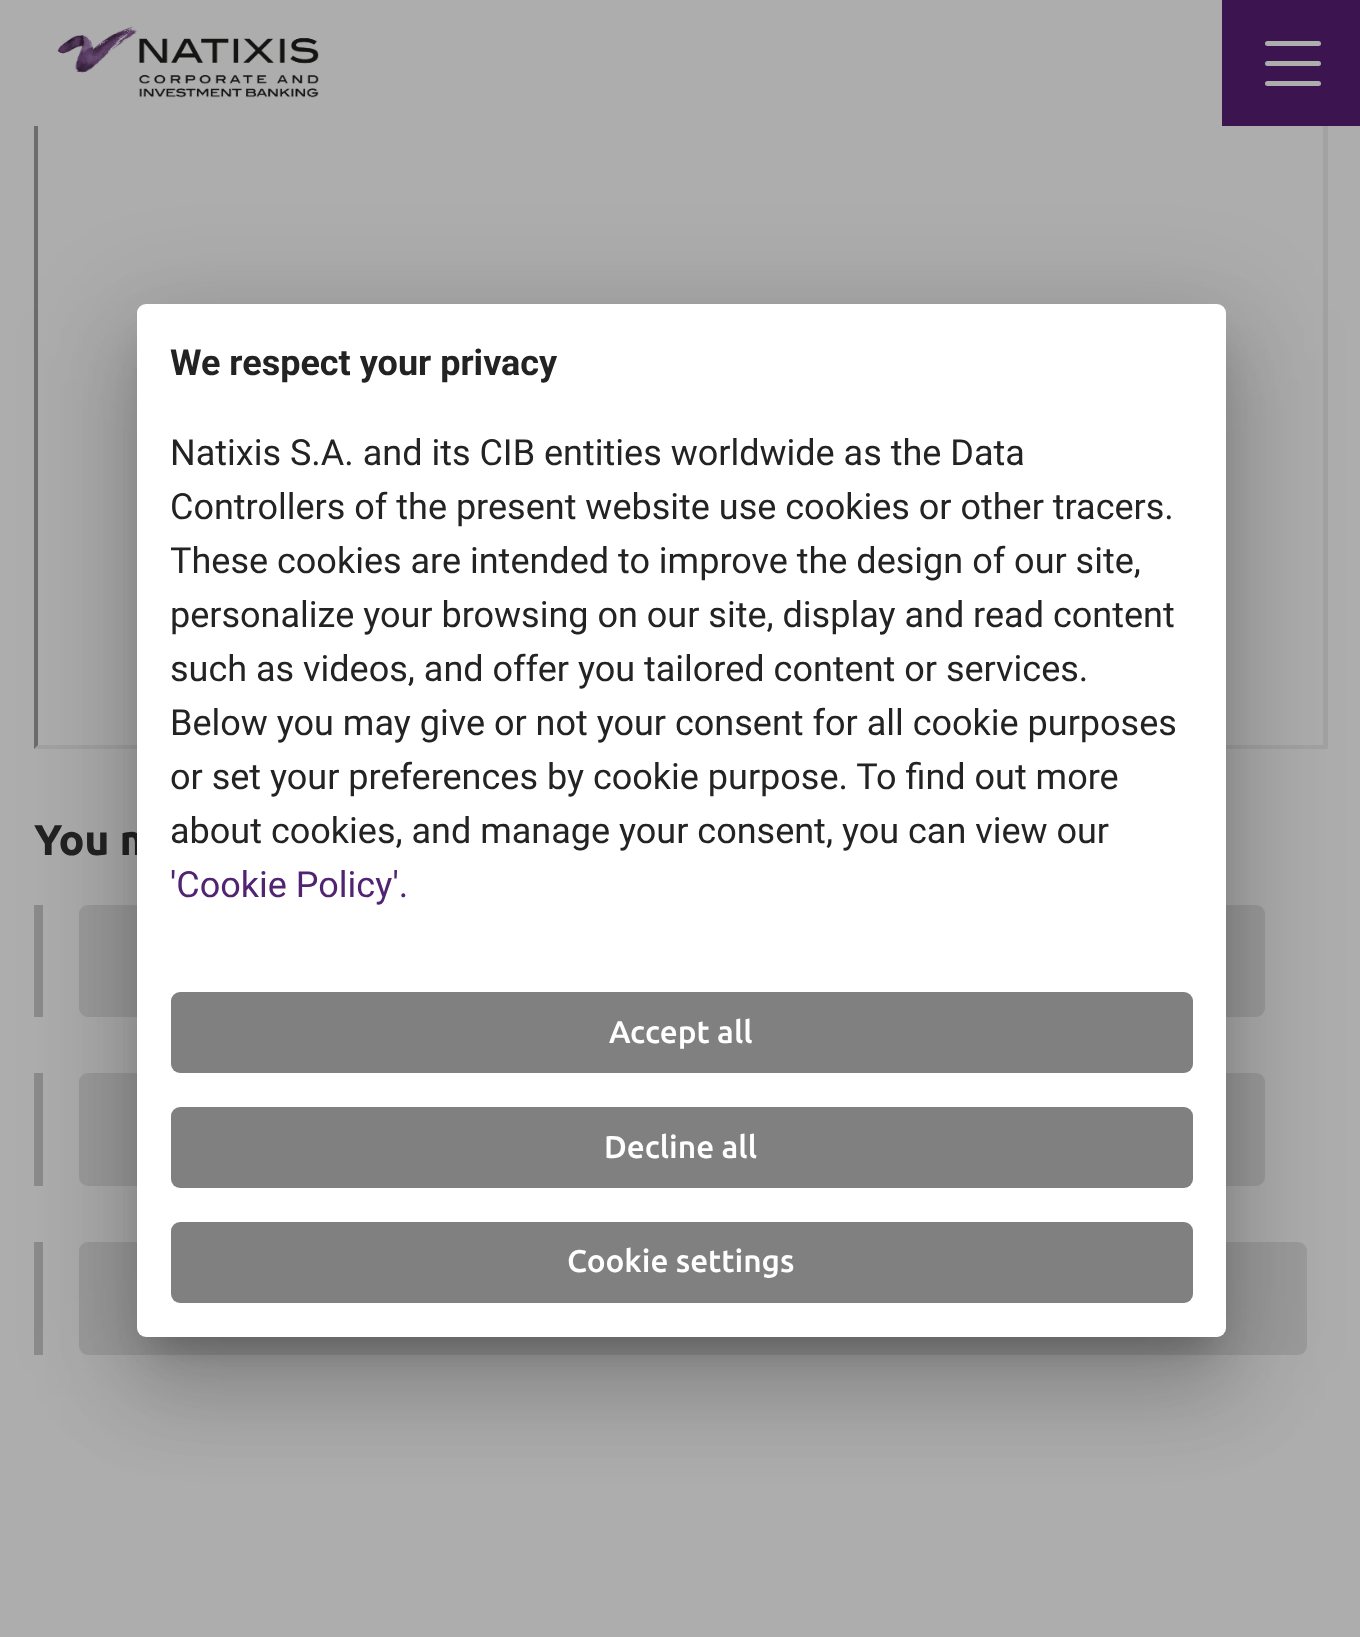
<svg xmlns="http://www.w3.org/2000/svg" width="1360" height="1637">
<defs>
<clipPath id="clip1"><rect x="171" y="338" width="1022" height="576"/></clipPath>
</defs>
<rect width="100%" height="100%" fill="#adadad"/>
<path d="M1328-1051v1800l-5-4v-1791z" fill="#a2a2a2"/>
<path d="M1328 749h-1294l4-4h1285z" fill="#a2a2a2"/>
<path d="M34 749v-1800l4 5v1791z" fill="#6c6c6c"/>
<rect x="34" width="4" height="126" fill="#adadad"/>
<image x="57" y="26" width="262" height="72" href="media/1.png"/>
<rect x="1222" width="138" height="126" fill="#3c144f"/>
<rect x="1265" y="41" width="56" height="5" rx="2.5" fill="#adadad"/>
<rect x="1265" y="61" width="56" height="5" rx="2.5" fill="#adadad"/>
<rect x="1265" y="81" width="56" height="5" rx="2.5" fill="#adadad"/>
<text x="34" y="855" style="font-family:Ubuntu;font-size:43px;font-weight:bold;letter-spacing:-0.25px;fill:#232323">You m</text>
<rect x="79" y="905" width="1186" height="112" rx="9" fill="#9c9c9c"/>
<rect x="34" y="905" width="9" height="112" fill="#8b8b8b"/>
<rect x="79" y="1073" width="1186" height="113" rx="9" fill="#9c9c9c"/>
<rect x="34" y="1073" width="9" height="113" fill="#8b8b8b"/>
<rect x="79" y="1242" width="1228" height="113" rx="9" fill="#9c9c9c"/>
<rect x="34" y="1242" width="9" height="113" fill="#8b8b8b"/>
<rect x="119" y="306" width="1125" height="1069" rx="27" fill="#0000001f" filter="blur(52px)"/>
<rect x="131" y="351" width="1102" height="1046" rx="16" fill="#00000024" filter="blur(43px)"/>
<rect x="153" y="344" width="1058" height="1002" fill="#00000033" filter="blur(17px)"/>
<rect x="137" y="304" width="1089" height="1033" rx="9" fill="#fff"/>
<text x="170" y="375" style="font-family:Roboto;font-size:36px;font-weight:bold;fill:#232323">We respect your privacy</text>
<text x="170" y="465" style="font-family:Roboto;font-size:36px;fill:#232323">Natixis S.A. and its CIB entities worldwide as the Data</text>
<text x="170" y="519" style="font-family:Roboto;font-size:36px;fill:#232323">Controllers of the present website use cookies or other tracers.</text>
<g clip-path="url(#clip1)">
<text x="170" y="573" style="font-family:Roboto;font-size:36px;fill:#232323">These cookies are intended to improve the design of our site,</text>
</g>
<text x="170" y="627" style="font-family:Roboto;font-size:36px;fill:#232323">personalize your browsing on our site, display and read content</text>
<text x="170" y="681" style="font-family:Roboto;font-size:36px;fill:#232323">such as videos, and offer you tailored content or services.</text>
<text x="170" y="735" style="font-family:Roboto;font-size:36px;fill:#232323">Below you may give or not your consent for all cookie purposes</text>
<text x="170" y="789" style="font-family:Roboto;font-size:36px;fill:#232323">or set your preferences by cookie purpose. To find out more</text>
<text x="170" y="843" style="font-family:Roboto;font-size:36px;fill:#232323">about cookies, and manage your consent, you can view our</text>
<text x="170" y="897" style="font-family:Roboto;font-size:36px;fill:#512472">'Cookie Policy'.</text>
<rect x="171" y="992" width="1022" height="81" rx="9" fill="#808080"/>
<text x="609" y="1043" style="font-family:Ubuntu;font-size:31.5px;font-weight:500;fill:#fff">Accept all</text>
<rect x="171" y="1107" width="1022" height="81" rx="9" fill="#808080"/>
<text x="604" y="1158" style="font-family:Ubuntu;font-size:31.5px;font-weight:500;fill:#fff">Decline all</text>
<rect x="171" y="1222" width="1022" height="81" rx="9" fill="#808080"/>
<text x="567" y="1272" style="font-family:Ubuntu;font-size:31.5px;font-weight:500;fill:#fff">Cookie settings</text>
</svg>
